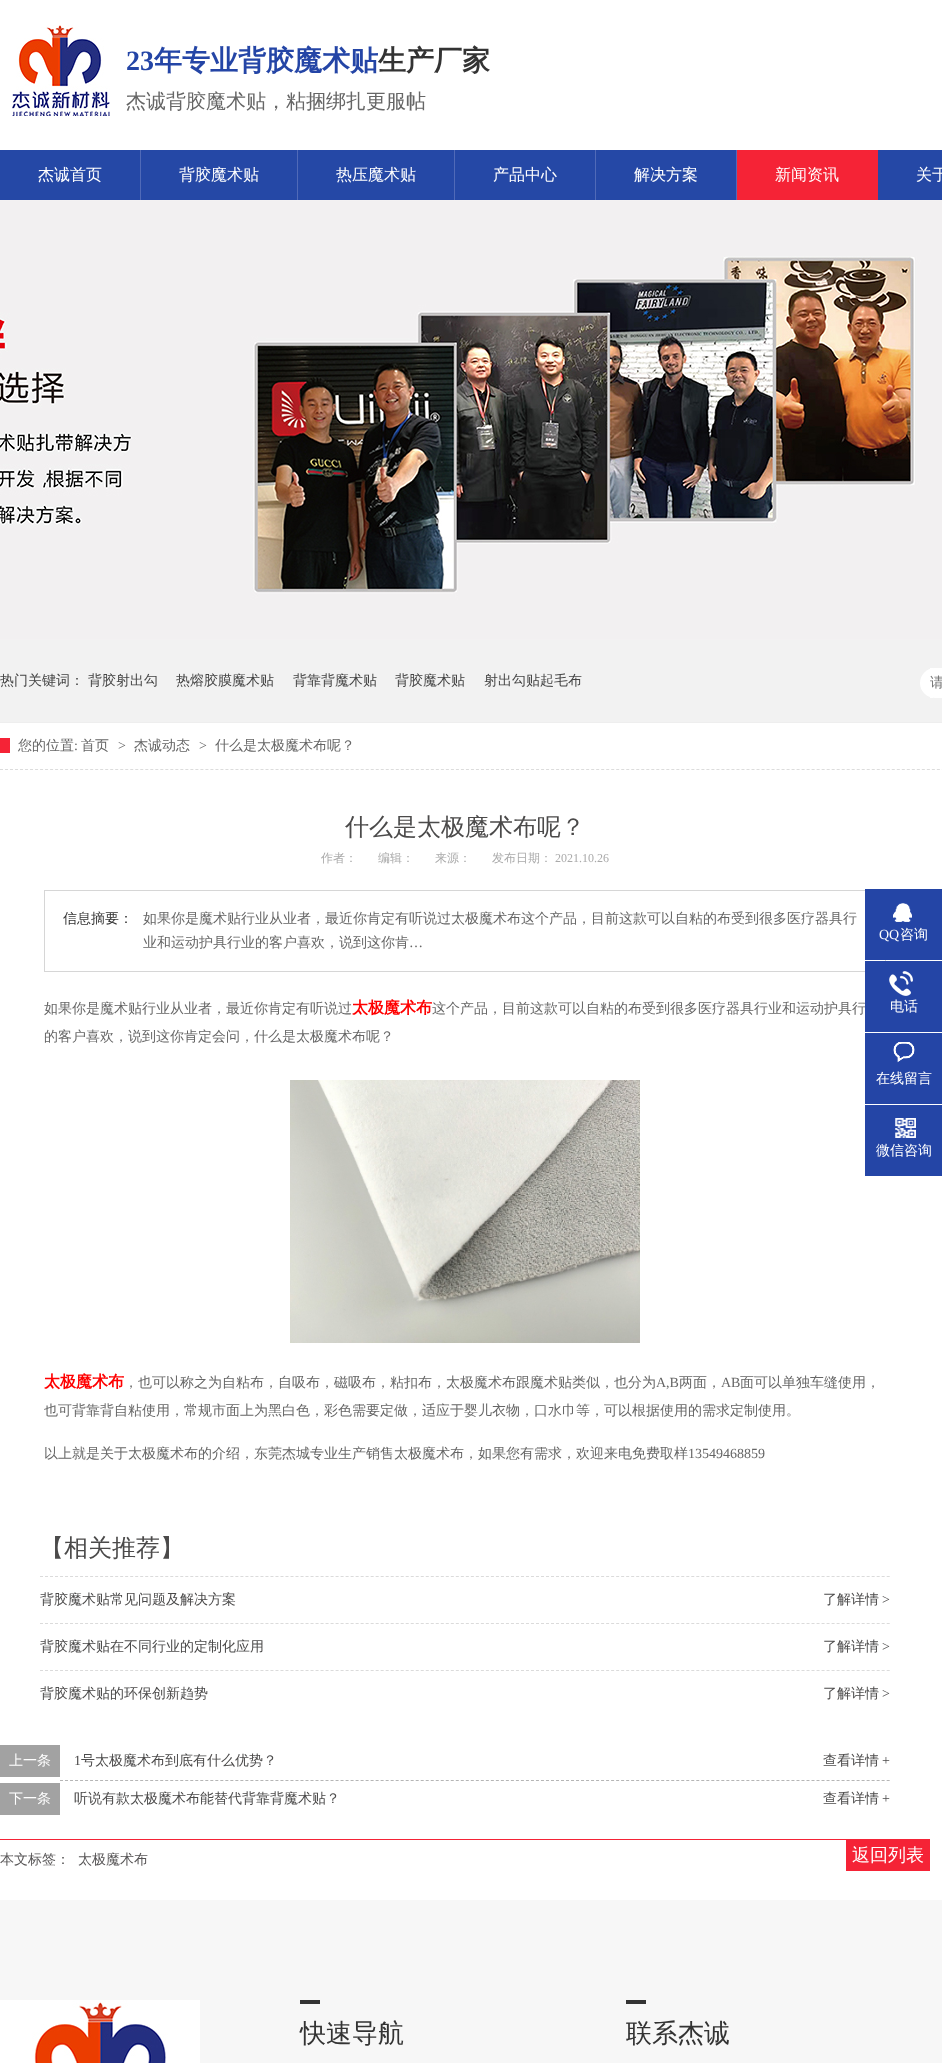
<svg xmlns="http://www.w3.org/2000/svg" width="942" height="2063">
<rect width="100%" height="100%" fill="#fff"/>
<rect y="150" width="942" height="50" fill="#2548a6"/>
<image x="12" y="25" width="98" height="93" href="media/1.png"/>
<text x="126" y="70" style="font-family:Liberation Serif;font-size:28px;font-weight:bold;fill:#2445a6">23</text>
<text x="154" y="70" style="font-family:WenQuanYi Zen Hei;font-size:28px;font-weight:bold;fill:#2445a6">年专业背胶魔术贴</text>
<text x="378" y="70" style="font-family:WenQuanYi Zen Hei;font-size:28px;font-weight:bold;fill:#333">生产厂家</text>
<text x="126" y="108" style="font-family:WenQuanYi Zen Hei;font-size:20px;font-weight:500;fill:#666">杰诚背胶魔术贴，粘捆绑扎更服帖</text>
<rect x="140" y="150" width="1" height="50" fill="#506ab8"/>
<text x="38" y="180" style="font-family:WenQuanYi Zen Hei;font-size:16px;font-weight:500;fill:#fff">杰诚首页</text>
<rect x="297" y="150" width="1" height="50" fill="#506ab8"/>
<text x="179" y="180" style="font-family:WenQuanYi Zen Hei;font-size:16px;font-weight:500;fill:#fff">背胶魔术贴</text>
<rect x="454" y="150" width="1" height="50" fill="#506ab8"/>
<text x="336" y="180" style="font-family:WenQuanYi Zen Hei;font-size:16px;font-weight:500;fill:#fff">热压魔术贴</text>
<rect x="595" y="150" width="1" height="50" fill="#506ab8"/>
<text x="493" y="180" style="font-family:WenQuanYi Zen Hei;font-size:16px;font-weight:500;fill:#fff">产品中心</text>
<rect x="736" y="150" width="1" height="50" fill="#506ab8"/>
<text x="634" y="180" style="font-family:WenQuanYi Zen Hei;font-size:16px;font-weight:500;fill:#fff">解决方案</text>
<rect x="737" y="150" width="141" height="50" fill="#f52336"/>
<text x="775" y="180" style="font-family:WenQuanYi Zen Hei;font-size:16px;font-weight:500;fill:#fff">新闻资讯</text>
<text x="916" y="180" style="font-family:WenQuanYi Zen Hei;font-size:16px;font-weight:500;fill:#fff">关于</text>
<image x="0" y="200" width="942" height="440" href="media/2.png"/>
<rect y="640" width="942" height="82" fill="#f2f2f2"/>
<rect y="722" width="942" height="1" fill="#eee"/>
<text x="0" y="685" style="font-family:WenQuanYi Zen Hei;font-size:14px;font-weight:500;fill:#444">热门关键词：</text>
<text x="88" y="685" style="font-family:WenQuanYi Zen Hei;font-size:14px;font-weight:500;fill:#444">背胶射出勾</text>
<text x="176" y="685" style="font-family:WenQuanYi Zen Hei;font-size:14px;font-weight:500;fill:#444">热熔胶膜魔术贴</text>
<text x="293" y="685" style="font-family:WenQuanYi Zen Hei;font-size:14px;font-weight:500;fill:#444">背靠背魔术贴</text>
<text x="395" y="685" style="font-family:WenQuanYi Zen Hei;font-size:14px;font-weight:500;fill:#444">背胶魔术贴</text>
<text x="484" y="685" style="font-family:WenQuanYi Zen Hei;font-size:14px;font-weight:500;fill:#444">射出勾贴起毛布</text>
<rect x="920" y="668" width="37" height="30" rx="15" fill="#fff"/>
<rect x="930" y="668" width="3" height="30" fill="#fff"/>
<text x="930" y="687" style="font-family:WenQuanYi Zen Hei;font-size:14px;font-weight:500;fill:#757575">请</text>
<path d="M0 769.5h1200" fill="none" stroke="#dcdcdc" stroke-dasharray="3 2.01"/>
<text x="18" y="750" style="font-family:WenQuanYi Zen Hei;font-size:14px;font-weight:500;fill:#666">您的位置</text>
<rect y="738" width="10" height="15" fill="#f52336"/>
<text x="74" y="750" style="font-family:Liberation Serif;font-size:14px;fill:#666">:</text>
<text x="81" y="750" style="font-family:WenQuanYi Zen Hei;font-size:14px;font-weight:500;fill:#666">首页</text>
<text x="118" y="750" style="font-family:Liberation Serif;font-size:14px;fill:#666">&gt;</text>
<text x="134" y="750" style="font-family:WenQuanYi Zen Hei;font-size:14px;font-weight:500;fill:#666">杰诚动态</text>
<text x="199" y="750" style="font-family:Liberation Serif;font-size:14px;fill:#666">&gt;</text>
<text x="215" y="750" style="font-family:WenQuanYi Zen Hei;font-size:14px;font-weight:500;fill:#666">什么是太极魔术布呢？</text>
<text x="345" y="835" style="font-family:WenQuanYi Zen Hei;font-size:24px;font-weight:500;fill:#4b4a4a">什么是太极魔术布呢？</text>
<text x="321" y="862" style="font-family:WenQuanYi Zen Hei;font-size:12px;font-weight:500;fill:#aaa">作者：</text>
<text x="378" y="862" style="font-family:WenQuanYi Zen Hei;font-size:12px;font-weight:500;fill:#aaa">编辑：</text>
<text x="435" y="862" style="font-family:WenQuanYi Zen Hei;font-size:12px;font-weight:500;fill:#aaa">来源：</text>
<text x="492" y="862" style="font-family:WenQuanYi Zen Hei;font-size:12px;font-weight:500;fill:#aaa">发布日期：</text>
<text x="555" y="862" style="font-family:Liberation Serif;font-size:12px;fill:#aaa">2021.10.26</text>
<rect x="44.5" y="890.5" width="841" height="81" fill="none" stroke="#d6d6d6"/>
<text x="63" y="923" style="font-family:WenQuanYi Zen Hei;font-size:14px;font-weight:500;fill:#333">信息摘要：</text>
<text x="143" y="923" style="font-family:WenQuanYi Zen Hei;font-size:14px;font-weight:500;fill:#666">如果你是魔术贴行业从业者，最近你肯定有听说过太极魔术布这个产品，目前这款可以自粘的布受到很多医疗器具行</text>
<text x="143" y="947" style="font-family:WenQuanYi Zen Hei;font-size:14px;font-weight:500;fill:#666">业和运动护具行业的客户喜欢，说到这你肯</text>
<text x="409" y="947" style="font-family:Liberation Serif;font-size:14px;fill:#666">…</text>
<text x="44" y="1013" style="font-family:WenQuanYi Zen Hei;font-size:14px;font-weight:500;fill:#666">如果你是魔术贴行业从业者，最近你肯定有听说过</text>
<text x="352" y="1013" style="font-family:WenQuanYi Zen Hei;font-size:16px;font-weight:bold;fill:#f00">太极魔术布</text>
<text x="432" y="1013" style="font-family:WenQuanYi Zen Hei;font-size:14px;font-weight:500;fill:#666">这个产品，目前这款可以自粘的布受到很多医疗器具行业和运动护具行</text>
<text x="44" y="1041" style="font-family:WenQuanYi Zen Hei;font-size:14px;font-weight:500;fill:#666">的客户喜欢，说到这你肯定会问，什么是太极魔术布呢？</text>
<image x="290" y="1080" width="350" height="263" href="media/3.png"/>
<text x="44" y="1387" style="font-family:WenQuanYi Zen Hei;font-size:16px;font-weight:bold;fill:#f00">太极魔术布</text>
<text x="124" y="1387" style="font-family:WenQuanYi Zen Hei;font-size:14px;font-weight:500;fill:#666">，也可以称之为自粘布，自吸布，磁吸布，粘扣布，太极魔术布跟魔术贴类似，也分为</text>
<text x="656" y="1387" style="font-family:Liberation Serif;font-size:14px;fill:#666">A,B</text>
<text x="679" y="1387" style="font-family:WenQuanYi Zen Hei;font-size:14px;font-weight:500;fill:#666">两面，</text>
<text x="721" y="1387" style="font-family:Liberation Serif;font-size:14px;fill:#666">AB</text>
<text x="740" y="1387" style="font-family:WenQuanYi Zen Hei;font-size:14px;font-weight:500;fill:#666">面可以单独车缝使用，</text>
<text x="44" y="1415" style="font-family:WenQuanYi Zen Hei;font-size:14px;font-weight:500;fill:#666">也可背靠背自粘使用，常规市面上为黑白色，彩色需要定做，适应于婴儿衣物，口水巾等，可以根据使用的需求定制使用。</text>
<text x="44" y="1458" style="font-family:WenQuanYi Zen Hei;font-size:14px;font-weight:500;fill:#666">以上就是关于太极魔术布的介绍，东莞杰城专业生产销售太极魔术布，如果您有需求，欢迎来电免费取样</text>
<text x="688" y="1458" style="font-family:Liberation Serif;font-size:14px;fill:#666">13549468859</text>
<text x="40" y="1556" style="font-family:WenQuanYi Zen Hei;font-size:24px;font-weight:500;fill:#4b4a4a">【相关推荐】</text>
<path d="M40 1576.5h850" fill="none" stroke="#dbdbdb" stroke-dasharray="3 2.01"/>
<text x="40" y="1604" style="font-family:WenQuanYi Zen Hei;font-size:14px;font-weight:500;fill:#4b4a4a">背胶魔术贴常见问题及解决方案</text>
<text x="823" y="1604" style="font-family:WenQuanYi Zen Hei;font-size:14px;font-weight:500;fill:#4b4a4a">了解详情</text>
<text x="882" y="1604" style="font-family:Liberation Serif;font-size:14px;fill:#4b4a4a">&gt;</text>
<path d="M40 1623.5h850" fill="none" stroke="#dbdbdb" stroke-dasharray="3 2.01"/>
<text x="40" y="1651" style="font-family:WenQuanYi Zen Hei;font-size:14px;font-weight:500;fill:#4b4a4a">背胶魔术贴在不同行业的定制化应用</text>
<text x="823" y="1651" style="font-family:WenQuanYi Zen Hei;font-size:14px;font-weight:500;fill:#4b4a4a">了解详情</text>
<text x="882" y="1651" style="font-family:Liberation Serif;font-size:14px;fill:#4b4a4a">&gt;</text>
<path d="M40 1670.5h850" fill="none" stroke="#dbdbdb" stroke-dasharray="3 2.01"/>
<text x="40" y="1698" style="font-family:WenQuanYi Zen Hei;font-size:14px;font-weight:500;fill:#4b4a4a">背胶魔术贴的环保创新趋势</text>
<text x="823" y="1698" style="font-family:WenQuanYi Zen Hei;font-size:14px;font-weight:500;fill:#4b4a4a">了解详情</text>
<text x="882" y="1698" style="font-family:Liberation Serif;font-size:14px;fill:#4b4a4a">&gt;</text>
<rect y="1745" width="60" height="32" fill="#a2a2a2"/>
<text x="9" y="1765" style="font-family:WenQuanYi Zen Hei;font-size:14px;font-weight:500;fill:#fff">上一条</text>
<text x="74" y="1765" style="font-family:Liberation Serif;font-size:14px;fill:#4b4a4a">1</text>
<text x="81" y="1765" style="font-family:WenQuanYi Zen Hei;font-size:14px;font-weight:500;fill:#4b4a4a">号太极魔术布到底有什么优势？</text>
<text x="823" y="1765" style="font-family:WenQuanYi Zen Hei;font-size:14px;font-weight:500;fill:#4b4a4a">查看详情</text>
<text x="882" y="1765" style="font-family:Liberation Serif;font-size:14px;fill:#4b4a4a">+</text>
<path d="M60 1780.5h830" fill="none" stroke="#b5b5b5" stroke-dasharray="3 2.01"/>
<rect y="1783" width="60" height="32" fill="#a2a2a2"/>
<text x="9" y="1803" style="font-family:WenQuanYi Zen Hei;font-size:14px;font-weight:500;fill:#fff">下一条</text>
<text x="74" y="1803" style="font-family:WenQuanYi Zen Hei;font-size:14px;font-weight:500;fill:#4b4a4a">听说有款太极魔术布能替代背靠背魔术贴？</text>
<text x="823" y="1803" style="font-family:WenQuanYi Zen Hei;font-size:14px;font-weight:500;fill:#4b4a4a">查看详情</text>
<text x="882" y="1803" style="font-family:Liberation Serif;font-size:14px;fill:#4b4a4a">+</text>
<rect y="1839" width="846" height="1" fill="#f52336"/>
<text x="0" y="1864" style="font-family:WenQuanYi Zen Hei;font-size:14px;font-weight:500;fill:#575556">本文标签：</text>
<text x="78" y="1864" style="font-family:WenQuanYi Zen Hei;font-size:14px;font-weight:500;fill:#575556">太极魔术布</text>
<rect x="846" y="1839" width="84" height="32" fill="#f52336"/>
<text x="852" y="1861" style="font-family:WenQuanYi Zen Hei;font-size:18px;font-weight:500;fill:#fff">返回列表</text>
<rect x="865" y="889" width="77" height="71" fill="#2445a6"/>
<image x="893" y="903" width="19" height="19" href="media/4.png"/>
<text x="879" y="939" style="font-family:Liberation Serif;font-size:14px;fill:#fff">QQ</text>
<text x="900" y="939" style="font-family:WenQuanYi Zen Hei;font-size:14px;font-weight:500;fill:#fff">咨询</text>
<rect x="865" y="961" width="77" height="71" fill="#2445a6"/>
<image x="889" y="971" width="24" height="25" href="media/5.png"/>
<text x="890" y="1011" style="font-family:WenQuanYi Zen Hei;font-size:14px;font-weight:500;fill:#fff">电话</text>
<rect x="865" y="1033" width="77" height="71" fill="#2445a6"/>
<image x="893" y="1042" width="22" height="21" href="media/6.png"/>
<text x="876" y="1083" style="font-family:WenQuanYi Zen Hei;font-size:14px;font-weight:500;fill:#fff">在线留言</text>
<rect x="865" y="1105" width="77" height="71" fill="#2445a6"/>
<image x="895" y="1118" width="21" height="20" href="media/7.png"/>
<text x="876" y="1155" style="font-family:WenQuanYi Zen Hei;font-size:14px;font-weight:500;fill:#fff">微信咨询</text>
<rect y="1900" width="942" height="163" fill="#f7f7f7"/>
<image x="0" y="2000" width="200" height="63" href="media/8.png"/>
<rect x="300" y="2000" width="20" height="4" fill="#333"/>
<text x="300" y="2042" style="font-family:WenQuanYi Zen Hei;font-size:26px;font-weight:500;fill:#333">快速导航</text>
<rect x="626" y="2000" width="20" height="4" fill="#333"/>
<text x="626" y="2042" style="font-family:WenQuanYi Zen Hei;font-size:26px;font-weight:500;fill:#333">联系杰诚</text>
</svg>
